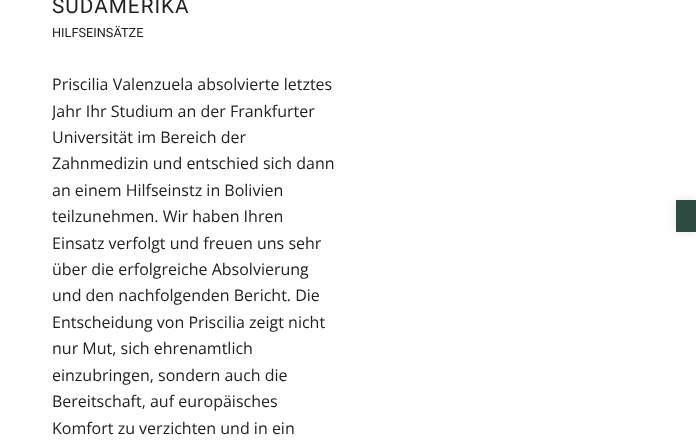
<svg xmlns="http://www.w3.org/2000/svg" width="696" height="446">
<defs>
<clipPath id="clip1"><rect x="52" y="71" width="284" height="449"/></clipPath>
</defs>
<rect width="100%" height="100%" fill="#fff"/>
<text x="52" y="13" style="font-family:Roboto;font-size:20.75px;letter-spacing:1px;fill:#222">SÜDAMERIKA</text>
<text x="52" y="37" style="font-family:Roboto;font-size:12.75px;fill:#222">HILFSEINSÄTZE</text>
<text x="52" y="90" style="font-family:Open Sans;font-size:16px;fill:#222">Priscilia Valenzuela absolvierte letztes</text>
<g clip-path="url(#clip1)">
<text x="52" y="117" style="font-family:Open Sans;font-size:16px;fill:#222">Jahr Ihr Studium an der Frankfurter</text>
</g>
<text x="52" y="143" style="font-family:Open Sans;font-size:16px;fill:#222">Universität im Bereich der</text>
<text x="52" y="169" style="font-family:Open Sans;font-size:16px;fill:#222">Zahnmedizin und entschied sich dann</text>
<text x="52" y="196" style="font-family:Open Sans;font-size:16px;fill:#222">an einem Hilfseinstz in Bolivien</text>
<text x="52" y="222" style="font-family:Open Sans;font-size:16px;fill:#222">teilzunehmen. Wir haben Ihren</text>
<text x="52" y="249" style="font-family:Open Sans;font-size:16px;fill:#222">Einsatz verfolgt und freuen uns sehr</text>
<text x="52" y="275" style="font-family:Open Sans;font-size:16px;fill:#222">über die erfolgreiche Absolvierung</text>
<text x="52" y="301" style="font-family:Open Sans;font-size:16px;fill:#222">und den nachfolgenden Bericht. Die</text>
<text x="52" y="328" style="font-family:Open Sans;font-size:16px;fill:#222">Entscheidung von Priscilia zeigt nicht</text>
<text x="52" y="354" style="font-family:Open Sans;font-size:16px;fill:#222">nur Mut, sich ehrenamtlich</text>
<text x="52" y="381" style="font-family:Open Sans;font-size:16px;fill:#222">einzubringen, sondern auch die</text>
<text x="52" y="407" style="font-family:Open Sans;font-size:16px;fill:#222">Bereitschaft, auf europäisches</text>
<text x="52" y="434" style="font-family:Open Sans;font-size:16px;fill:#222">Komfort zu verzichten und in ein</text>
<rect x="676" y="200" width="20" height="32" fill="#0000001a" filter="blur(5px)"/>
<rect x="676" y="200" width="20" height="32" fill="#2d4b41"/>
</svg>
